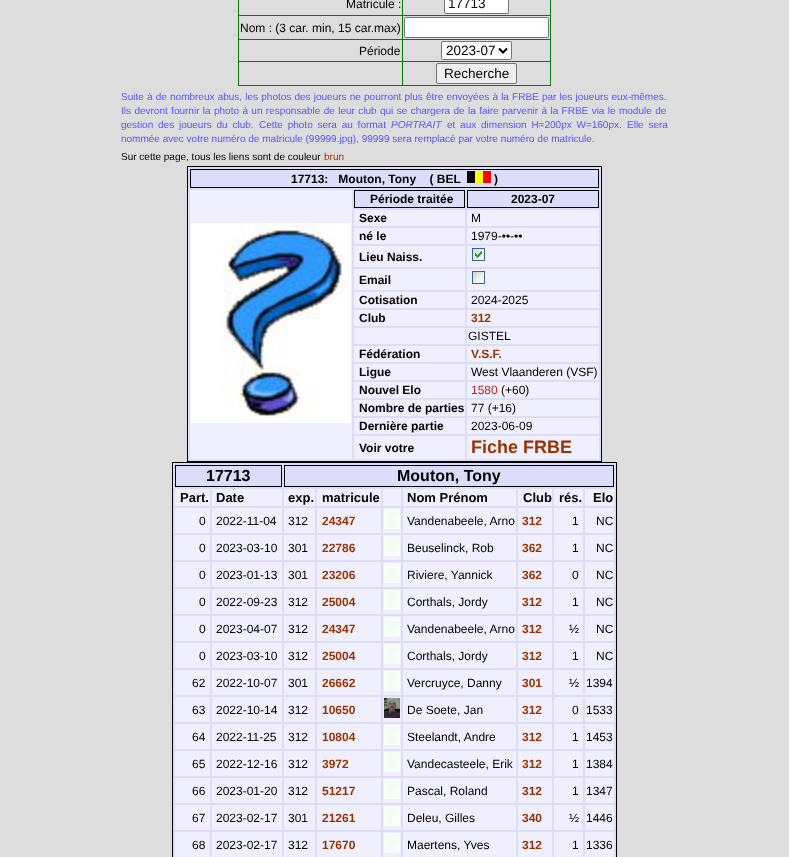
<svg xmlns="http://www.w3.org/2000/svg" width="789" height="857">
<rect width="100%" height="100%" fill="#ddd"/>
<text x="346" y="8" style="font-family:Liberation Sans;font-size:12px;fill:#000">Matricule :</text>
<rect x="444.5" y="-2.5" width="64" height="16" rx="1.5" fill="#fff" stroke="#767676"/>
<text x="448" y="8" style="font-family:Liberation Sans;font-size:13.5px;fill:#000">17713</text>
<rect x="238" y="15" width="313" height="1" fill="#008000"/>
<rect x="238" y="39" width="313" height="1" fill="#008000"/>
<rect x="238" y="61" width="313" height="1" fill="#008000"/>
<rect x="550" y="61" width="1" height="25" fill="#008000"/>
<rect x="550" y="39" width="1" height="23" fill="#008000"/>
<rect x="550" width="1" height="40" fill="#008000"/>
<rect x="238" y="85" width="313" height="1" fill="#008000"/>
<rect x="238" y="61" width="1" height="25" fill="#008000"/>
<rect x="238" y="39" width="1" height="23" fill="#008000"/>
<rect x="238" width="1" height="40" fill="#008000"/>
<text x="240" y="32" style="font-family:Liberation Sans;font-size:12px;fill:#000">Nom : (3 car. min, 15 car.max)</text>
<rect x="404.5" y="17.5" width="144" height="20" rx="1.5" fill="#fff" stroke="#767676"/>
<text x="359" y="55" style="font-family:Liberation Sans;font-size:12px;fill:#000">Période</text>
<rect x="441.5" y="41.5" width="70" height="18" rx="1.5" fill="#fff" stroke="#767676"/>
<path d="M499 48.5l4 4l4-4" fill="none" stroke="#000" stroke-width="2"/>
<text x="446" y="55" style="font-family:Liberation Sans;font-size:13.5px;fill:#000">2023-07</text>
<rect x="402" width="1" height="86" fill="#008000"/>
<rect x="436.5" y="63.5" width="80" height="20" rx="1.5" fill="#efefef" stroke="#767676"/>
<text x="444" y="78" style="font-family:Liberation Sans;font-size:13.5px;fill:#000">Recherche</text>
<text x="121" y="100" word-spacing="0.4" style="font-family:Liberation Sans;font-size:10px;fill:#55f">Suite à de nombreux abus, les photos des joueurs ne pourront plus être envoyées à la FRBE par les joueurs eux-mêmes.</text>
<text x="121" y="114" word-spacing="0.6" style="font-family:Liberation Sans;font-size:10px;fill:#55f">Ils devront fournir la photo à un responsable de leur club qui se chargera de la faire parvenir à la FRBE via le module de</text>
<text x="121" y="128" word-spacing="2" style="font-family:Liberation Sans;font-size:10px;fill:#55f">gestion des joueurs du club.</text>
<text x="259" y="128" word-spacing="2" style="font-family:Liberation Sans;font-size:10px;fill:#55f">Cette photo sera au format</text>
<text x="391" y="128" style="font-family:Liberation Sans;font-size:10px;font-style:italic;fill:#55f">PORTRAIT</text>
<text x="447" y="128" word-spacing="2" style="font-family:Liberation Sans;font-size:10px;fill:#55f">et aux dimension H=200px W=160px.</text>
<text x="627" y="128" word-spacing="2" style="font-family:Liberation Sans;font-size:10px;fill:#55f">Elle sera</text>
<text x="121" y="142" style="font-family:Liberation Sans;font-size:10px;fill:#55f">nommée avec votre numéro de matricule (99999.jpg), 99999 sera remplacé par votre numéro de matricule.</text>
<text x="121" y="160" style="font-family:Liberation Sans;font-size:10px;fill:#000">Sur cette page, tous les liens sont de couleur</text>
<text x="324" y="160" style="font-family:Liberation Sans;font-size:10px;fill:#930">brun</text>
<rect x="187.5" y="166.5" width="414" height="295" fill="#dbddf9" stroke="#000"/>
<rect x="190.5" y="169.5" width="408" height="18" fill="none" stroke="#000"/>
<text x="291" y="183" style="font-family:Liberation Sans;font-size:12px;font-weight:bold;fill:#000" xml:space="preserve">17713:   Mouton, Tony    ( BEL</text>
<image x="467" y="171" width="24" height="12" href="media/1.png"/>
<text x="494" y="183" style="font-family:Liberation Sans;font-size:12px;font-weight:bold;fill:#000">)</text>
<rect x="190" y="190" width="162" height="269" fill="#f0effe"/>
<image x="191" y="223" width="160" height="200" href="media/2.png"/>
<rect x="354.5" y="190.5" width="110" height="17" fill="none" stroke="#000"/>
<text x="370" y="203" style="font-family:Liberation Sans;font-size:12px;font-weight:bold;fill:#000">Période traitée</text>
<rect x="467.5" y="190.5" width="131" height="17" fill="none" stroke="#000"/>
<text x="511" y="203" style="font-family:Liberation Sans;font-size:12px;font-weight:bold;fill:#000">2023-07</text>
<rect x="354" y="210" width="111" height="16" fill="#f0effe"/>
<text x="359" y="222" style="font-family:Liberation Sans;font-size:12px;font-weight:bold;fill:#000">Sexe</text>
<rect x="467" y="210" width="132" height="16" fill="#f0effe"/>
<text x="471" y="222" style="font-family:Liberation Sans;font-size:12px;fill:#000">M</text>
<rect x="354" y="228" width="111" height="16" fill="#f0effe"/>
<text x="359" y="240" style="font-family:Liberation Sans;font-size:12px;font-weight:bold;fill:#000">né le</text>
<rect x="467" y="228" width="132" height="16" fill="#f0effe"/>
<text x="471" y="240" style="font-family:Liberation Sans;font-size:12px;fill:#000">1979-••-••</text>
<rect x="354" y="246" width="111" height="21" fill="#f0effe"/>
<text x="359" y="261" style="font-family:Liberation Sans;font-size:12px;font-weight:bold;fill:#000">Lieu Naiss.</text>
<rect x="467" y="246" width="132" height="21" fill="#f0effe"/>
<image x="472" y="248" width="13" height="13" href="media/3.png"/>
<rect x="354" y="269" width="111" height="21" fill="#f0effe"/>
<text x="359" y="284" style="font-family:Liberation Sans;font-size:12px;font-weight:bold;fill:#000">Email</text>
<rect x="467" y="269" width="132" height="21" fill="#f0effe"/>
<image x="472" y="271" width="13" height="13" href="media/4.png"/>
<rect x="354" y="292" width="111" height="16" fill="#f0effe"/>
<text x="359" y="304" style="font-family:Liberation Sans;font-size:12px;font-weight:bold;fill:#000">Cotisation</text>
<rect x="467" y="292" width="132" height="16" fill="#f0effe"/>
<text x="471" y="304" style="font-family:Liberation Sans;font-size:12px;fill:#000">2024-2025</text>
<rect x="354" y="310" width="111" height="16" fill="#f0effe"/>
<text x="359" y="322" style="font-family:Liberation Sans;font-size:12px;font-weight:bold;fill:#000">Club</text>
<rect x="467" y="310" width="132" height="16" fill="#f0effe"/>
<text x="471" y="322" style="font-family:Liberation Sans;font-size:12px;font-weight:bold;fill:#930">312</text>
<rect x="354" y="328" width="111" height="16" fill="#f0effe"/>
<rect x="467" y="328" width="132" height="16" fill="#f0effe"/>
<text x="468" y="340" style="font-family:Liberation Sans;font-size:12px;fill:#000">GISTEL</text>
<rect x="354" y="346" width="111" height="16" fill="#f0effe"/>
<text x="359" y="358" style="font-family:Liberation Sans;font-size:12px;font-weight:bold;fill:#000">Fédération</text>
<rect x="467" y="346" width="132" height="16" fill="#f0effe"/>
<text x="471" y="358" style="font-family:Liberation Sans;font-size:12px;font-weight:bold;fill:#930">V.S.F.</text>
<rect x="354" y="364" width="111" height="16" fill="#f0effe"/>
<text x="359" y="376" style="font-family:Liberation Sans;font-size:12px;font-weight:bold;fill:#000">Ligue</text>
<rect x="467" y="364" width="132" height="16" fill="#f0effe"/>
<text x="471" y="376" style="font-family:Liberation Sans;font-size:12px;fill:#000">West Vlaanderen (VSF)</text>
<rect x="354" y="382" width="111" height="16" fill="#f0effe"/>
<text x="359" y="394" style="font-family:Liberation Sans;font-size:12px;font-weight:bold;fill:#000">Nouvel Elo</text>
<rect x="467" y="382" width="132" height="16" fill="#f0effe"/>
<text x="471" y="394" style="font-family:Liberation Sans;font-size:12px;fill:#ce2020">1580</text>
<text x="501" y="394" style="font-family:Liberation Sans;font-size:12px;fill:#000">(+60)</text>
<rect x="354" y="400" width="111" height="16" fill="#f0effe"/>
<text x="359" y="412" style="font-family:Liberation Sans;font-size:12px;font-weight:bold;fill:#000">Nombre de parties</text>
<rect x="467" y="400" width="132" height="16" fill="#f0effe"/>
<text x="471" y="412" style="font-family:Liberation Sans;font-size:12px;fill:#000">77 (+16)</text>
<rect x="354" y="418" width="111" height="16" fill="#f0effe"/>
<text x="359" y="430" style="font-family:Liberation Sans;font-size:12px;font-weight:bold;fill:#000">Dernière partie</text>
<rect x="467" y="418" width="132" height="16" fill="#f0effe"/>
<text x="471" y="430" style="font-family:Liberation Sans;font-size:12px;fill:#000">2023-06-09</text>
<rect x="354" y="436" width="111" height="23" fill="#f0effe"/>
<text x="359" y="452" style="font-family:Liberation Sans;font-size:12px;font-weight:bold;fill:#000">Voir votre</text>
<rect x="467" y="436" width="132" height="23" fill="#f0effe"/>
<text x="471" y="453" style="font-family:Liberation Sans;font-size:18px;font-weight:bold;fill:#930">Fiche FRBE</text>
<rect x="172.5" y="462.5" width="444" height="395" fill="#dbddf9" stroke="#000"/>
<rect x="175.5" y="465.5" width="106" height="21" fill="none" stroke="#000"/>
<text x="206" y="481" style="font-family:Liberation Sans;font-size:16px;font-weight:bold;fill:#000">17713</text>
<rect x="284.5" y="465.5" width="329" height="21" fill="none" stroke="#000"/>
<text x="397" y="481" style="font-family:Liberation Sans;font-size:16px;font-weight:bold;fill:#000">Mouton, Tony</text>
<rect x="175" y="489" width="35" height="17" fill="#f0effe"/>
<text x="180" y="502" style="font-family:Liberation Sans;font-size:13px;font-weight:bold;fill:#000">Part.</text>
<rect x="212" y="489" width="70" height="17" fill="#f0effe"/>
<text x="216" y="502" style="font-family:Liberation Sans;font-size:13px;font-weight:bold;fill:#000">Date</text>
<rect x="284" y="489" width="31" height="17" fill="#f0effe"/>
<text x="288" y="502" style="font-family:Liberation Sans;font-size:13px;font-weight:bold;fill:#000">exp.</text>
<rect x="317" y="489" width="64" height="17" fill="#f0effe"/>
<text x="322" y="502" style="font-family:Liberation Sans;font-size:13px;font-weight:bold;fill:#000">matricule</text>
<rect x="383" y="489" width="18" height="17" fill="#f0effe"/>
<rect x="403" y="489" width="113" height="17" fill="#f0effe"/>
<text x="407" y="502" style="font-family:Liberation Sans;font-size:13px;font-weight:bold;fill:#000">Nom Prénom</text>
<rect x="518" y="489" width="34" height="17" fill="#f0effe"/>
<text x="523" y="502" style="font-family:Liberation Sans;font-size:13px;font-weight:bold;fill:#000">Club</text>
<rect x="554" y="489" width="29" height="17" fill="#f0effe"/>
<text x="559" y="502" style="font-family:Liberation Sans;font-size:13px;font-weight:bold;fill:#000">rés.</text>
<rect x="585" y="489" width="29" height="17" fill="#f0effe"/>
<text x="593" y="502" style="font-family:Liberation Sans;font-size:13px;font-weight:bold;fill:#000">Elo</text>
<rect x="175" y="508" width="35" height="25" fill="#f0effe"/>
<text x="199" y="525" style="font-family:Liberation Sans;font-size:12px;fill:#000">0</text>
<rect x="212" y="508" width="70" height="25" fill="#f0effe"/>
<text x="216" y="525" style="font-family:Liberation Sans;font-size:12px;fill:#000">2022-11-04</text>
<rect x="284" y="508" width="31" height="25" fill="#f0effe"/>
<text x="288" y="525" style="font-family:Liberation Sans;font-size:12px;fill:#000">312</text>
<rect x="317" y="508" width="64" height="25" fill="#f0effe"/>
<text x="322" y="525" style="font-family:Liberation Sans;font-size:12px;font-weight:bold;fill:#930">24347</text>
<rect x="383" y="508" width="18" height="25" fill="#f0effe"/>
<image x="384" y="509" width="16" height="20" href="media/5.png"/>
<rect x="403" y="508" width="113" height="25" fill="#f0effe"/>
<text x="407" y="525" style="font-family:Liberation Sans;font-size:12px;fill:#000">Vandenabeele, Arno</text>
<rect x="518" y="508" width="34" height="25" fill="#f0effe"/>
<text x="522" y="525" style="font-family:Liberation Sans;font-size:12px;font-weight:bold;fill:#930">312</text>
<rect x="554" y="508" width="29" height="25" fill="#f0effe"/>
<text x="572" y="525" style="font-family:Liberation Sans;font-size:12px;fill:#000">1</text>
<rect x="585" y="508" width="29" height="25" fill="#f0effe"/>
<text x="596" y="525" style="font-family:Liberation Sans;font-size:12px;fill:#000">NC</text>
<rect x="175" y="535" width="35" height="25" fill="#f0effe"/>
<text x="199" y="552" style="font-family:Liberation Sans;font-size:12px;fill:#000">0</text>
<rect x="212" y="535" width="70" height="25" fill="#f0effe"/>
<text x="216" y="552" style="font-family:Liberation Sans;font-size:12px;fill:#000">2023-03-10</text>
<rect x="284" y="535" width="31" height="25" fill="#f0effe"/>
<text x="288" y="552" style="font-family:Liberation Sans;font-size:12px;fill:#000">301</text>
<rect x="317" y="535" width="64" height="25" fill="#f0effe"/>
<text x="322" y="552" style="font-family:Liberation Sans;font-size:12px;font-weight:bold;fill:#930">22786</text>
<rect x="383" y="535" width="18" height="25" fill="#f0effe"/>
<image x="384" y="536" width="16" height="20" href="media/5.png"/>
<rect x="403" y="535" width="113" height="25" fill="#f0effe"/>
<text x="407" y="552" style="font-family:Liberation Sans;font-size:12px;fill:#000">Beuselinck, Rob</text>
<rect x="518" y="535" width="34" height="25" fill="#f0effe"/>
<text x="522" y="552" style="font-family:Liberation Sans;font-size:12px;font-weight:bold;fill:#930">362</text>
<rect x="554" y="535" width="29" height="25" fill="#f0effe"/>
<text x="572" y="552" style="font-family:Liberation Sans;font-size:12px;fill:#000">1</text>
<rect x="585" y="535" width="29" height="25" fill="#f0effe"/>
<text x="596" y="552" style="font-family:Liberation Sans;font-size:12px;fill:#000">NC</text>
<rect x="175" y="562" width="35" height="25" fill="#f0effe"/>
<text x="199" y="579" style="font-family:Liberation Sans;font-size:12px;fill:#000">0</text>
<rect x="212" y="562" width="70" height="25" fill="#f0effe"/>
<text x="216" y="579" style="font-family:Liberation Sans;font-size:12px;fill:#000">2023-01-13</text>
<rect x="284" y="562" width="31" height="25" fill="#f0effe"/>
<text x="288" y="579" style="font-family:Liberation Sans;font-size:12px;fill:#000">301</text>
<rect x="317" y="562" width="64" height="25" fill="#f0effe"/>
<text x="322" y="579" style="font-family:Liberation Sans;font-size:12px;font-weight:bold;fill:#930">23206</text>
<rect x="383" y="562" width="18" height="25" fill="#f0effe"/>
<image x="384" y="563" width="16" height="20" href="media/5.png"/>
<rect x="403" y="562" width="113" height="25" fill="#f0effe"/>
<text x="407" y="579" style="font-family:Liberation Sans;font-size:12px;fill:#000">Riviere, Yannick</text>
<rect x="518" y="562" width="34" height="25" fill="#f0effe"/>
<text x="522" y="579" style="font-family:Liberation Sans;font-size:12px;font-weight:bold;fill:#930">362</text>
<rect x="554" y="562" width="29" height="25" fill="#f0effe"/>
<text x="572" y="579" style="font-family:Liberation Sans;font-size:12px;fill:#000">0</text>
<rect x="585" y="562" width="29" height="25" fill="#f0effe"/>
<text x="596" y="579" style="font-family:Liberation Sans;font-size:12px;fill:#000">NC</text>
<rect x="175" y="589" width="35" height="25" fill="#f0effe"/>
<text x="199" y="606" style="font-family:Liberation Sans;font-size:12px;fill:#000">0</text>
<rect x="212" y="589" width="70" height="25" fill="#f0effe"/>
<text x="216" y="606" style="font-family:Liberation Sans;font-size:12px;fill:#000">2022-09-23</text>
<rect x="284" y="589" width="31" height="25" fill="#f0effe"/>
<text x="288" y="606" style="font-family:Liberation Sans;font-size:12px;fill:#000">312</text>
<rect x="317" y="589" width="64" height="25" fill="#f0effe"/>
<text x="322" y="606" style="font-family:Liberation Sans;font-size:12px;font-weight:bold;fill:#930">25004</text>
<rect x="383" y="589" width="18" height="25" fill="#f0effe"/>
<image x="384" y="590" width="16" height="20" href="media/5.png"/>
<rect x="403" y="589" width="113" height="25" fill="#f0effe"/>
<text x="407" y="606" style="font-family:Liberation Sans;font-size:12px;fill:#000">Corthals, Jordy</text>
<rect x="518" y="589" width="34" height="25" fill="#f0effe"/>
<text x="522" y="606" style="font-family:Liberation Sans;font-size:12px;font-weight:bold;fill:#930">312</text>
<rect x="554" y="589" width="29" height="25" fill="#f0effe"/>
<text x="572" y="606" style="font-family:Liberation Sans;font-size:12px;fill:#000">1</text>
<rect x="585" y="589" width="29" height="25" fill="#f0effe"/>
<text x="596" y="606" style="font-family:Liberation Sans;font-size:12px;fill:#000">NC</text>
<rect x="175" y="616" width="35" height="25" fill="#f0effe"/>
<text x="199" y="633" style="font-family:Liberation Sans;font-size:12px;fill:#000">0</text>
<rect x="212" y="616" width="70" height="25" fill="#f0effe"/>
<text x="216" y="633" style="font-family:Liberation Sans;font-size:12px;fill:#000">2023-04-07</text>
<rect x="284" y="616" width="31" height="25" fill="#f0effe"/>
<text x="288" y="633" style="font-family:Liberation Sans;font-size:12px;fill:#000">312</text>
<rect x="317" y="616" width="64" height="25" fill="#f0effe"/>
<text x="322" y="633" style="font-family:Liberation Sans;font-size:12px;font-weight:bold;fill:#930">24347</text>
<rect x="383" y="616" width="18" height="25" fill="#f0effe"/>
<image x="384" y="617" width="16" height="20" href="media/5.png"/>
<rect x="403" y="616" width="113" height="25" fill="#f0effe"/>
<text x="407" y="633" style="font-family:Liberation Sans;font-size:12px;fill:#000">Vandenabeele, Arno</text>
<rect x="518" y="616" width="34" height="25" fill="#f0effe"/>
<text x="522" y="633" style="font-family:Liberation Sans;font-size:12px;font-weight:bold;fill:#930">312</text>
<rect x="554" y="616" width="29" height="25" fill="#f0effe"/>
<text x="569" y="633" style="font-family:Liberation Sans;font-size:12px;fill:#000">½</text>
<rect x="585" y="616" width="29" height="25" fill="#f0effe"/>
<text x="596" y="633" style="font-family:Liberation Sans;font-size:12px;fill:#000">NC</text>
<rect x="175" y="643" width="35" height="25" fill="#f0effe"/>
<text x="199" y="660" style="font-family:Liberation Sans;font-size:12px;fill:#000">0</text>
<rect x="212" y="643" width="70" height="25" fill="#f0effe"/>
<text x="216" y="660" style="font-family:Liberation Sans;font-size:12px;fill:#000">2023-03-10</text>
<rect x="284" y="643" width="31" height="25" fill="#f0effe"/>
<text x="288" y="660" style="font-family:Liberation Sans;font-size:12px;fill:#000">312</text>
<rect x="317" y="643" width="64" height="25" fill="#f0effe"/>
<text x="322" y="660" style="font-family:Liberation Sans;font-size:12px;font-weight:bold;fill:#930">25004</text>
<rect x="383" y="643" width="18" height="25" fill="#f0effe"/>
<image x="384" y="644" width="16" height="20" href="media/5.png"/>
<rect x="403" y="643" width="113" height="25" fill="#f0effe"/>
<text x="407" y="660" style="font-family:Liberation Sans;font-size:12px;fill:#000">Corthals, Jordy</text>
<rect x="518" y="643" width="34" height="25" fill="#f0effe"/>
<text x="522" y="660" style="font-family:Liberation Sans;font-size:12px;font-weight:bold;fill:#930">312</text>
<rect x="554" y="643" width="29" height="25" fill="#f0effe"/>
<text x="572" y="660" style="font-family:Liberation Sans;font-size:12px;fill:#000">1</text>
<rect x="585" y="643" width="29" height="25" fill="#f0effe"/>
<text x="596" y="660" style="font-family:Liberation Sans;font-size:12px;fill:#000">NC</text>
<rect x="175" y="670" width="35" height="25" fill="#f0effe"/>
<text x="192" y="687" style="font-family:Liberation Sans;font-size:12px;fill:#000">62</text>
<rect x="212" y="670" width="70" height="25" fill="#f0effe"/>
<text x="216" y="687" style="font-family:Liberation Sans;font-size:12px;fill:#000">2022-10-07</text>
<rect x="284" y="670" width="31" height="25" fill="#f0effe"/>
<text x="288" y="687" style="font-family:Liberation Sans;font-size:12px;fill:#000">301</text>
<rect x="317" y="670" width="64" height="25" fill="#f0effe"/>
<text x="322" y="687" style="font-family:Liberation Sans;font-size:12px;font-weight:bold;fill:#930">26662</text>
<rect x="383" y="670" width="18" height="25" fill="#f0effe"/>
<image x="384" y="671" width="16" height="20" href="media/5.png"/>
<rect x="403" y="670" width="113" height="25" fill="#f0effe"/>
<text x="407" y="687" style="font-family:Liberation Sans;font-size:12px;fill:#000">Vercruyce, Danny</text>
<rect x="518" y="670" width="34" height="25" fill="#f0effe"/>
<text x="522" y="687" style="font-family:Liberation Sans;font-size:12px;font-weight:bold;fill:#930">301</text>
<rect x="554" y="670" width="29" height="25" fill="#f0effe"/>
<text x="569" y="687" style="font-family:Liberation Sans;font-size:12px;fill:#000">½</text>
<rect x="585" y="670" width="29" height="25" fill="#f0effe"/>
<text x="586" y="687" style="font-family:Liberation Sans;font-size:12px;fill:#000">1394</text>
<rect x="175" y="697" width="35" height="25" fill="#f0effe"/>
<text x="192" y="714" style="font-family:Liberation Sans;font-size:12px;fill:#000">63</text>
<rect x="212" y="697" width="70" height="25" fill="#f0effe"/>
<text x="216" y="714" style="font-family:Liberation Sans;font-size:12px;fill:#000">2022-10-14</text>
<rect x="284" y="697" width="31" height="25" fill="#f0effe"/>
<text x="288" y="714" style="font-family:Liberation Sans;font-size:12px;fill:#000">312</text>
<rect x="317" y="697" width="64" height="25" fill="#f0effe"/>
<text x="322" y="714" style="font-family:Liberation Sans;font-size:12px;font-weight:bold;fill:#930">10650</text>
<rect x="383" y="697" width="18" height="25" fill="#f0effe"/>
<image x="384" y="698" width="16" height="20" href="media/6.png"/>
<rect x="403" y="697" width="113" height="25" fill="#f0effe"/>
<text x="407" y="714" style="font-family:Liberation Sans;font-size:12px;fill:#000">De Soete, Jan</text>
<rect x="518" y="697" width="34" height="25" fill="#f0effe"/>
<text x="522" y="714" style="font-family:Liberation Sans;font-size:12px;font-weight:bold;fill:#930">312</text>
<rect x="554" y="697" width="29" height="25" fill="#f0effe"/>
<text x="572" y="714" style="font-family:Liberation Sans;font-size:12px;fill:#000">0</text>
<rect x="585" y="697" width="29" height="25" fill="#f0effe"/>
<text x="586" y="714" style="font-family:Liberation Sans;font-size:12px;fill:#000">1533</text>
<rect x="175" y="724" width="35" height="25" fill="#f0effe"/>
<text x="192" y="741" style="font-family:Liberation Sans;font-size:12px;fill:#000">64</text>
<rect x="212" y="724" width="70" height="25" fill="#f0effe"/>
<text x="216" y="741" style="font-family:Liberation Sans;font-size:12px;fill:#000">2022-11-25</text>
<rect x="284" y="724" width="31" height="25" fill="#f0effe"/>
<text x="288" y="741" style="font-family:Liberation Sans;font-size:12px;fill:#000">312</text>
<rect x="317" y="724" width="64" height="25" fill="#f0effe"/>
<text x="322" y="741" style="font-family:Liberation Sans;font-size:12px;font-weight:bold;fill:#930">10804</text>
<rect x="383" y="724" width="18" height="25" fill="#f0effe"/>
<image x="384" y="725" width="16" height="20" href="media/5.png"/>
<rect x="403" y="724" width="113" height="25" fill="#f0effe"/>
<text x="407" y="741" style="font-family:Liberation Sans;font-size:12px;fill:#000">Steelandt, Andre</text>
<rect x="518" y="724" width="34" height="25" fill="#f0effe"/>
<text x="522" y="741" style="font-family:Liberation Sans;font-size:12px;font-weight:bold;fill:#930">312</text>
<rect x="554" y="724" width="29" height="25" fill="#f0effe"/>
<text x="572" y="741" style="font-family:Liberation Sans;font-size:12px;fill:#000">1</text>
<rect x="585" y="724" width="29" height="25" fill="#f0effe"/>
<text x="586" y="741" style="font-family:Liberation Sans;font-size:12px;fill:#000">1453</text>
<rect x="175" y="751" width="35" height="25" fill="#f0effe"/>
<text x="192" y="768" style="font-family:Liberation Sans;font-size:12px;fill:#000">65</text>
<rect x="212" y="751" width="70" height="25" fill="#f0effe"/>
<text x="216" y="768" style="font-family:Liberation Sans;font-size:12px;fill:#000">2022-12-16</text>
<rect x="284" y="751" width="31" height="25" fill="#f0effe"/>
<text x="288" y="768" style="font-family:Liberation Sans;font-size:12px;fill:#000">312</text>
<rect x="317" y="751" width="64" height="25" fill="#f0effe"/>
<text x="322" y="768" style="font-family:Liberation Sans;font-size:12px;font-weight:bold;fill:#930">3972</text>
<rect x="383" y="751" width="18" height="25" fill="#f0effe"/>
<image x="384" y="752" width="16" height="20" href="media/5.png"/>
<rect x="403" y="751" width="113" height="25" fill="#f0effe"/>
<text x="407" y="768" style="font-family:Liberation Sans;font-size:12px;fill:#000">Vandecasteele, Erik</text>
<rect x="518" y="751" width="34" height="25" fill="#f0effe"/>
<text x="522" y="768" style="font-family:Liberation Sans;font-size:12px;font-weight:bold;fill:#930">312</text>
<rect x="554" y="751" width="29" height="25" fill="#f0effe"/>
<text x="572" y="768" style="font-family:Liberation Sans;font-size:12px;fill:#000">1</text>
<rect x="585" y="751" width="29" height="25" fill="#f0effe"/>
<text x="586" y="768" style="font-family:Liberation Sans;font-size:12px;fill:#000">1384</text>
<rect x="175" y="778" width="35" height="25" fill="#f0effe"/>
<text x="192" y="795" style="font-family:Liberation Sans;font-size:12px;fill:#000">66</text>
<rect x="212" y="778" width="70" height="25" fill="#f0effe"/>
<text x="216" y="795" style="font-family:Liberation Sans;font-size:12px;fill:#000">2023-01-20</text>
<rect x="284" y="778" width="31" height="25" fill="#f0effe"/>
<text x="288" y="795" style="font-family:Liberation Sans;font-size:12px;fill:#000">312</text>
<rect x="317" y="778" width="64" height="25" fill="#f0effe"/>
<text x="322" y="795" style="font-family:Liberation Sans;font-size:12px;font-weight:bold;fill:#930">51217</text>
<rect x="383" y="778" width="18" height="25" fill="#f0effe"/>
<image x="384" y="779" width="16" height="20" href="media/5.png"/>
<rect x="403" y="778" width="113" height="25" fill="#f0effe"/>
<text x="407" y="795" style="font-family:Liberation Sans;font-size:12px;fill:#000">Pascal, Roland</text>
<rect x="518" y="778" width="34" height="25" fill="#f0effe"/>
<text x="522" y="795" style="font-family:Liberation Sans;font-size:12px;font-weight:bold;fill:#930">312</text>
<rect x="554" y="778" width="29" height="25" fill="#f0effe"/>
<text x="572" y="795" style="font-family:Liberation Sans;font-size:12px;fill:#000">1</text>
<rect x="585" y="778" width="29" height="25" fill="#f0effe"/>
<text x="586" y="795" style="font-family:Liberation Sans;font-size:12px;fill:#000">1347</text>
<rect x="175" y="805" width="35" height="25" fill="#f0effe"/>
<text x="192" y="822" style="font-family:Liberation Sans;font-size:12px;fill:#000">67</text>
<rect x="212" y="805" width="70" height="25" fill="#f0effe"/>
<text x="216" y="822" style="font-family:Liberation Sans;font-size:12px;fill:#000">2023-02-17</text>
<rect x="284" y="805" width="31" height="25" fill="#f0effe"/>
<text x="288" y="822" style="font-family:Liberation Sans;font-size:12px;fill:#000">301</text>
<rect x="317" y="805" width="64" height="25" fill="#f0effe"/>
<text x="322" y="822" style="font-family:Liberation Sans;font-size:12px;font-weight:bold;fill:#930">21261</text>
<rect x="383" y="805" width="18" height="25" fill="#f0effe"/>
<image x="384" y="806" width="16" height="20" href="media/5.png"/>
<rect x="403" y="805" width="113" height="25" fill="#f0effe"/>
<text x="407" y="822" style="font-family:Liberation Sans;font-size:12px;fill:#000">Deleu, Gilles</text>
<rect x="518" y="805" width="34" height="25" fill="#f0effe"/>
<text x="522" y="822" style="font-family:Liberation Sans;font-size:12px;font-weight:bold;fill:#930">340</text>
<rect x="554" y="805" width="29" height="25" fill="#f0effe"/>
<text x="569" y="822" style="font-family:Liberation Sans;font-size:12px;fill:#000">½</text>
<rect x="585" y="805" width="29" height="25" fill="#f0effe"/>
<text x="586" y="822" style="font-family:Liberation Sans;font-size:12px;fill:#000">1446</text>
<rect x="175" y="832" width="35" height="25" fill="#f0effe"/>
<text x="192" y="849" style="font-family:Liberation Sans;font-size:12px;fill:#000">68</text>
<rect x="212" y="832" width="70" height="25" fill="#f0effe"/>
<text x="216" y="849" style="font-family:Liberation Sans;font-size:12px;fill:#000">2023-02-17</text>
<rect x="284" y="832" width="31" height="25" fill="#f0effe"/>
<text x="288" y="849" style="font-family:Liberation Sans;font-size:12px;fill:#000">312</text>
<rect x="317" y="832" width="64" height="25" fill="#f0effe"/>
<text x="322" y="849" style="font-family:Liberation Sans;font-size:12px;font-weight:bold;fill:#930">17670</text>
<rect x="383" y="832" width="18" height="25" fill="#f0effe"/>
<image x="384" y="833" width="16" height="20" href="media/5.png"/>
<rect x="403" y="832" width="113" height="25" fill="#f0effe"/>
<text x="407" y="849" style="font-family:Liberation Sans;font-size:12px;fill:#000">Maertens, Yves</text>
<rect x="518" y="832" width="34" height="25" fill="#f0effe"/>
<text x="522" y="849" style="font-family:Liberation Sans;font-size:12px;font-weight:bold;fill:#930">312</text>
<rect x="554" y="832" width="29" height="25" fill="#f0effe"/>
<text x="572" y="849" style="font-family:Liberation Sans;font-size:12px;fill:#000">1</text>
<rect x="585" y="832" width="29" height="25" fill="#f0effe"/>
<text x="586" y="849" style="font-family:Liberation Sans;font-size:12px;fill:#000">1336</text>
</svg>
